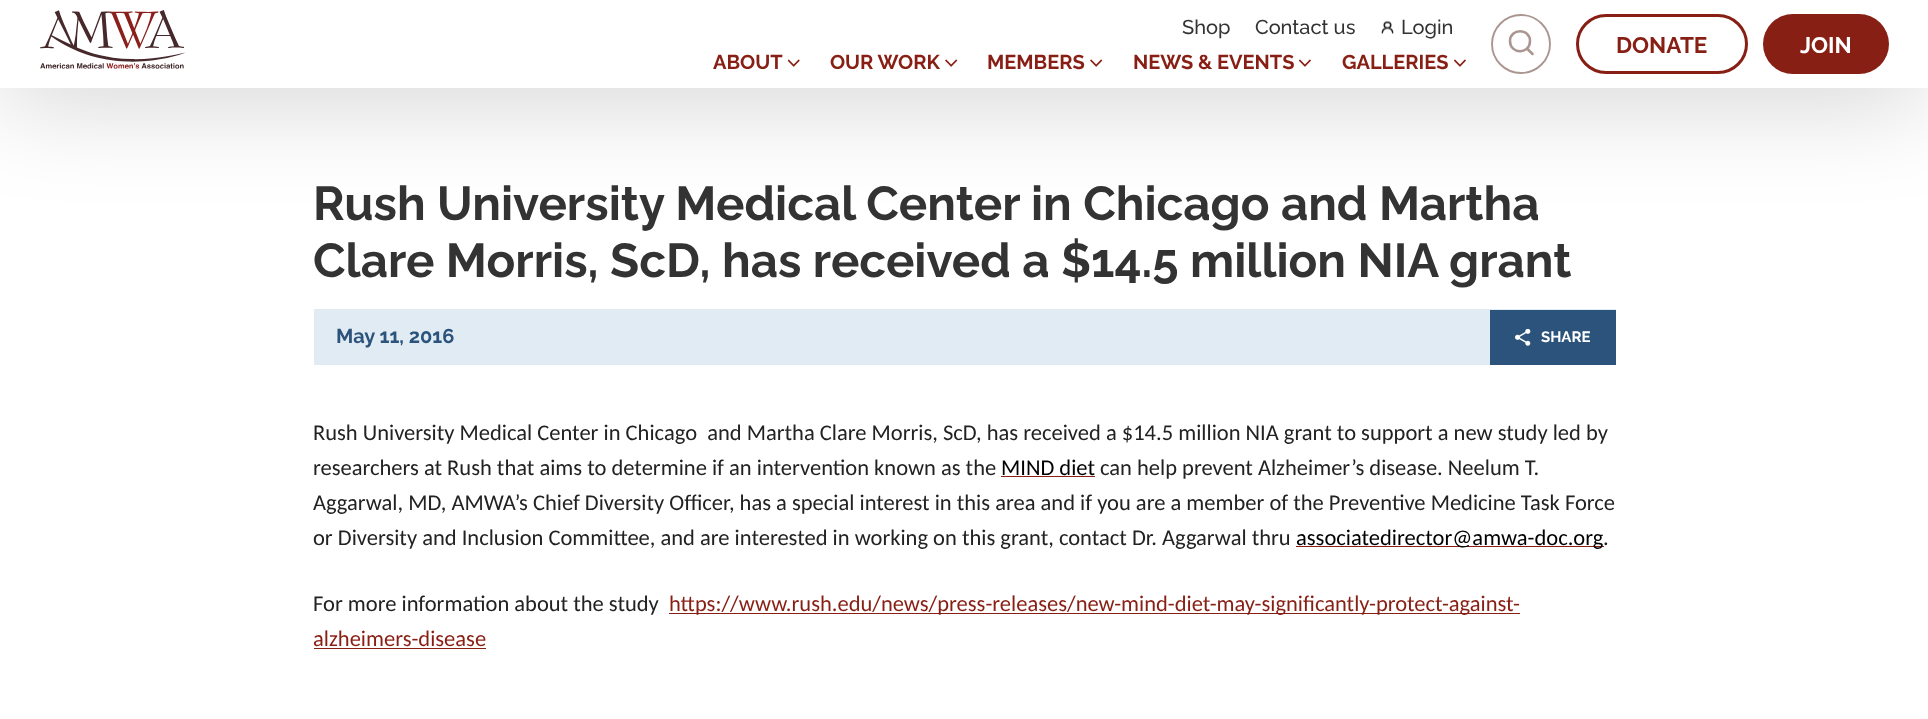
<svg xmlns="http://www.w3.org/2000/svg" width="1928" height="719">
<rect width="100%" height="100%" fill="#fff"/>
<rect y="5" width="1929" height="88" fill="#00000033" filter="blur(52.5px)"/>
<rect width="1928" height="88" fill="#fff"/>
<image x="40" y="10" width="145" height="59" href="media/1.png"/>
<text x="1182" y="34" style="font-family:Raleway;font-size:20px;font-weight:500;fill:#333">Shop</text>
<text x="1255" y="34" style="font-family:Raleway;font-size:20px;font-weight:500;fill:#333">Contact us</text>
<image x="1381" y="21" width="13" height="13" href="media/2.png"/>
<text x="1401" y="34" style="font-family:Raleway;font-size:20px;font-weight:500;fill:#333">Login</text>
<text x="713" y="69" style="font-family:Raleway;font-size:20px;font-weight:bold;fill:#881f14">ABOUT</text>
<image x="788" y="59" width="12" height="8" href="media/3.png"/>
<text x="830" y="69" style="font-family:Raleway;font-size:20px;font-weight:bold;fill:#881f14">OUR WORK</text>
<image x="945" y="59" width="13" height="8" href="media/4.png"/>
<text x="987" y="69" style="font-family:Raleway;font-size:20px;font-weight:bold;fill:#881f14">MEMBERS</text>
<image x="1090" y="59" width="13" height="8" href="media/4.png"/>
<text x="1133" y="69" style="font-family:Raleway;font-size:20px;font-weight:bold;fill:#881f14">NEWS &amp; EVENTS</text>
<image x="1299" y="59" width="12" height="8" href="media/5.png"/>
<text x="1342" y="69" style="font-family:Raleway;font-size:20px;font-weight:bold;fill:#881f14">GALLERIES</text>
<image x="1454" y="59" width="12" height="8" href="media/5.png"/>
<circle cx="1521" cy="44" r="29" fill="none" stroke="#aa9590" stroke-width="1.9"/>
<path d="M1532.5 54l-5.5-5.5m3-7.5c0 13.5-20 13.5-20 0c0-13 20-13 20 0z" fill="none" stroke="#aa9590" stroke-width="2.5" stroke-linecap="round" stroke-linejoin="round"/>
<rect x="1577.5" y="15.5" width="169" height="57" rx="28.5" fill="none" stroke="#881f14" stroke-width="3"/>
<text x="1616" y="53" style="font-family:Raleway;font-size:22.5px;font-weight:bold;fill:#881f14">DONATE</text>
<rect x="1763" y="14" width="126" height="60" rx="30" fill="#881f14"/>
<text x="1800" y="53" style="font-family:Raleway;font-size:22.5px;font-weight:bold;fill:#fff">JOIN</text>
<text x="313" y="220" style="font-family:Raleway;font-size:47.5px;font-weight:bold;fill:#333">Rush University Medical Center in Chicago and Martha</text>
<text x="313" y="277" style="font-family:Raleway;font-size:47.5px;font-weight:bold;fill:#333">Clare Morris, ScD, has received a $14.5 million NIA grant</text>
<rect x="314" y="309" width="1302" height="56" fill="#e1ebf4"/>
<text x="336" y="343" style="font-family:Raleway;font-size:20px;font-weight:bold;fill:#2b537b">May 11, 2016</text>
<rect x="1490" y="310" width="126" height="55" fill="#2b537b"/>
<image x="1515" y="329" width="16" height="17" href="media/6.png"/>
<text x="1541" y="342" style="font-family:Raleway;font-size:15px;font-weight:bold;fill:#fff">SHARE</text>
<text x="313" y="440" style="font-family:Carlito;font-size:22.5px;fill:#222" xml:space="preserve">Rush University Medical Center in Chicago  and Martha Clare Morris, ScD, has received a $14.5 million NIA grant to support a new study led by</text>
<text x="313" y="475" style="font-family:Carlito;font-size:22.5px;fill:#222">researchers at Rush that aims to determine if an intervention known as the</text>
<text x="1001" y="475" style="font-family:Carlito;font-size:22.5px;fill:#000">MIND diet</text>
<rect x="1001" y="476" width="94" height="1" fill="#881f14"/>
<text x="1100" y="475" style="font-family:Carlito;font-size:22.5px;fill:#222">can help prevent Alzheimer’s disease. Neelum T.</text>
<text x="313" y="510" style="font-family:Carlito;font-size:22.5px;fill:#222">Aggarwal, MD, AMWA’s Chief Diversity Officer, has a special interest in this area and if you are a member of the Preventive Medicine Task Force</text>
<text x="313" y="545" style="font-family:Carlito;font-size:22.5px;fill:#222">or Diversity and Inclusion Committee, and are interested in working on this grant, contact Dr. Aggarwal thru</text>
<rect x="1296" y="546" width="308" height="1" fill="#881f14"/>
<text x="1296" y="545" style="font-family:Carlito;font-size:22.5px;fill:#000">associatedirector@amwa-doc.org</text>
<text x="1603" y="545" style="font-family:Carlito;font-size:22.5px;fill:#222">.</text>
<text x="313" y="611" style="font-family:Carlito;font-size:22.5px;fill:#222">For more information about the study</text>
<rect x="669" y="613" width="851" height="1" fill="#881f14"/>
<text x="669" y="611" style="font-family:Carlito;font-size:22.5px;fill:#881f14">https://www.rush.edu/news/press-releases/new-mind-diet-may-significantly-protect-against-</text>
<text x="313" y="646" style="font-family:Carlito;font-size:22.5px;fill:#881f14">alzheimers-disease</text>
<rect x="314" y="648" width="172" height="1" fill="#881f14"/>
</svg>
